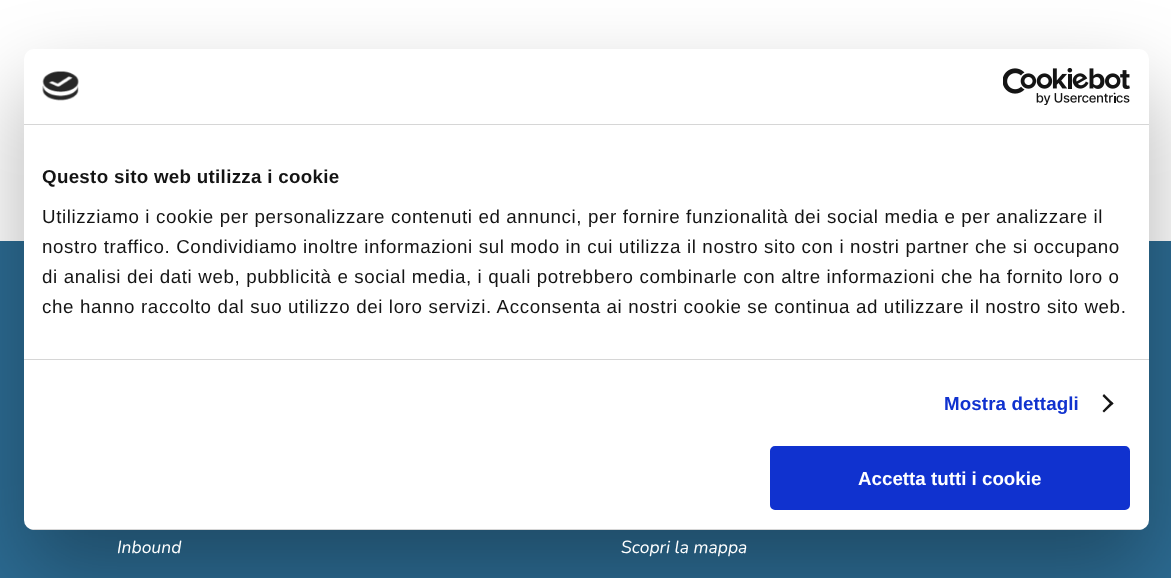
<svg xmlns="http://www.w3.org/2000/svg" width="1171" height="578">
<defs>
<clipPath id="clip1"><rect x="24" y="49" width="1125" height="481" rx="10"/></clipPath>
</defs>
<rect width="100%" height="100%" fill="#fff"/>
<rect y="241" width="1171" height="337" fill="#2c6b92"/>
<rect x="24" y="89" width="1125" height="481" rx="10" fill="#0000004d" filter="blur(42.5px)"/>
<rect x="24" y="49" width="1125" height="481" rx="10" fill="#fff"/>
<rect x="24" y="124" width="1125" height="1" fill="#d6d6d6"/>
<image x="42" y="71" width="37" height="30" href="media/1.png"/>
<image x="1003" y="68" width="127" height="37" href="media/2.png"/>
<rect x="24" y="359" width="1125" height="1" fill="#d6d6d6"/>
<text x="42" y="183" style="font-family:Liberation Sans;font-size:18.75px;font-weight:bold;letter-spacing:0.3px;fill:#141414">Questo sito web utilizza i cookie</text>
<text x="42" y="223" style="font-family:Liberation Sans;font-size:18.75px;letter-spacing:0.62px;fill:#141414">Utilizziamo i cookie per personalizzare contenuti ed annunci, per fornire funzionalità dei social media e per analizzare il</text>
<text x="42" y="253" style="font-family:Liberation Sans;font-size:18.75px;letter-spacing:0.62px;fill:#141414">nostro traffico. Condividiamo inoltre informazioni sul modo in cui utilizza il nostro sito con i nostri partner che si occupano</text>
<text x="42" y="283" style="font-family:Liberation Sans;font-size:18.75px;letter-spacing:0.62px;fill:#141414">di analisi dei dati web, pubblicità e social media, i quali potrebbero combinarle con altre informazioni che ha fornito loro o</text>
<text x="42" y="313" style="font-family:Liberation Sans;font-size:18.75px;letter-spacing:0.62px;fill:#141414">che hanno raccolto dal suo utilizzo dei loro servizi. Acconsenta ai nostri cookie se continua ad utilizzare il nostro sito web.</text>
<text x="944" y="410" style="font-family:Liberation Sans;font-size:18.75px;font-weight:bold;letter-spacing:0.1px;fill:#1032cf">Mostra dettagli</text>
<path d="M1104 394l9.5 9.5l-2 1.5l-9-9z" fill="#141414"/>
<path d="M1111.5 401.5l2 2l-9.5 9l-1.5-1.5z" fill="#141414"/>
<g clip-path="url(#clip1)">
<rect x="24" y="529" width="1125" height="1" fill="#d6d6d6"/>
</g>
<rect x="771.5" y="447.5" width="357" height="61" rx="3.5" fill="#1032cf" stroke="#1032cf" stroke-width="3"/>
<text x="858" y="485" style="font-family:Liberation Sans;font-size:18.75px;font-weight:bold;fill:#fff">Accetta tutti i cookie</text>
<text x="117" y="553" style="font-family:Nunito;font-size:17.5px;font-weight:200;font-style:italic;fill:#fff">Inbound</text>
<text x="621" y="553" style="font-family:Nunito;font-size:17.5px;font-weight:200;font-style:italic;fill:#fff">Scopri la mappa</text>
</svg>
